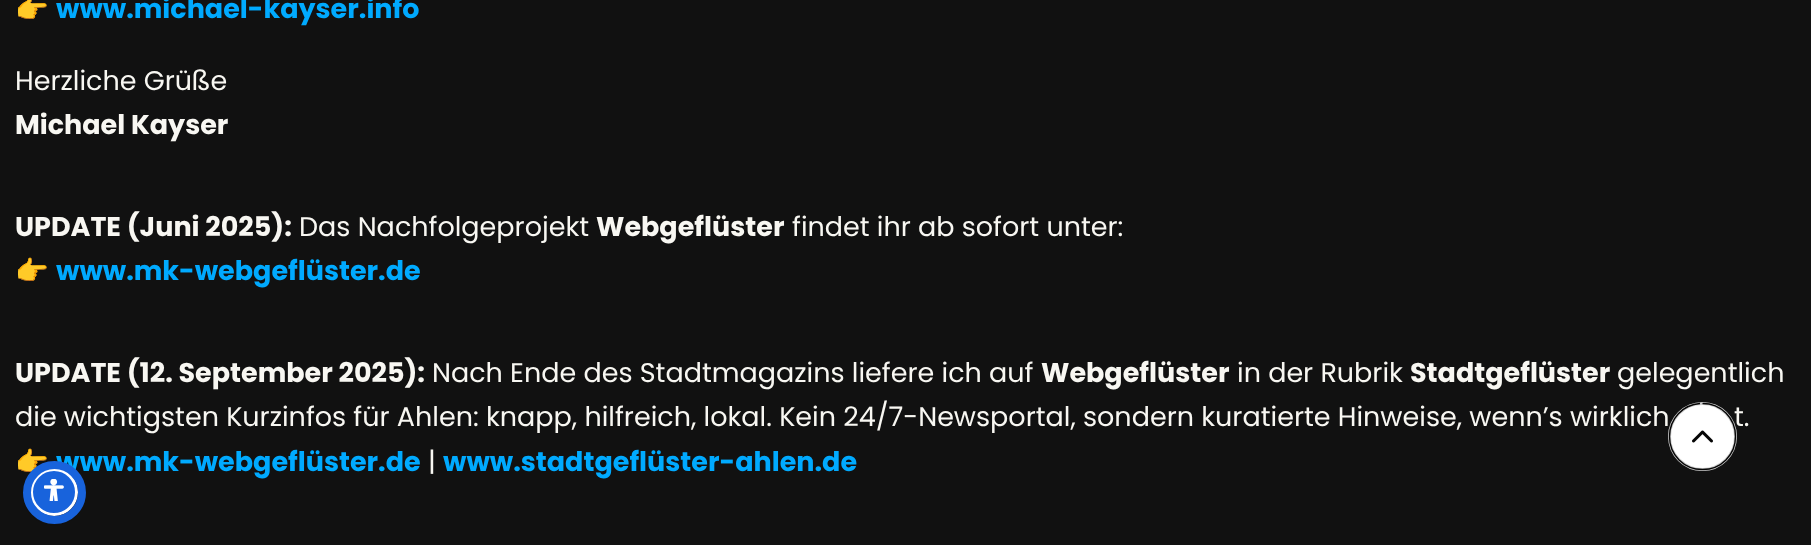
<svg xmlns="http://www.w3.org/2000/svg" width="1811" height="545">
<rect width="100%" height="100%" fill="#111"/>
<text x="15" y="18" style="font-family:Noto Color Emoji;font-size:27px;fill:#f8f7f2">👉</text>
<text x="56" y="18" style="font-family:Poppins;font-size:27px;font-weight:bold;fill:#0af">www.michael-kayser.info</text>
<text x="15" y="90" style="font-family:Poppins;font-size:27px;fill:#f8f7f2">Herzliche Grüße</text>
<text x="15" y="134" style="font-family:Poppins;font-size:27px;font-weight:bold;fill:#f8f7f2">Michael Kayser</text>
<text x="15" y="236" style="font-family:Poppins;font-size:27px;font-weight:bold;fill:#f8f7f2">UPDATE (Juni 2025):</text>
<text x="299" y="236" style="font-family:Poppins;font-size:27px;fill:#f8f7f2">Das Nachfolgeprojekt</text>
<text x="596" y="236" style="font-family:Poppins;font-size:27px;font-weight:bold;fill:#f8f7f2">Webgeflüster</text>
<text x="792" y="236" style="font-family:Poppins;font-size:27px;fill:#f8f7f2">findet ihr ab sofort unter:</text>
<text x="15" y="280" style="font-family:Noto Color Emoji;font-size:27px;fill:#f8f7f2">👉</text>
<text x="56" y="280" style="font-family:Poppins;font-size:27px;font-weight:bold;fill:#0af">www.mk-webgeflüster.de</text>
<text x="15" y="382" style="font-family:Poppins;font-size:27px;font-weight:bold;fill:#f8f7f2">UPDATE (12. September 2025):</text>
<text x="432" y="382" style="font-family:Poppins;font-size:27px;fill:#f8f7f2">Nach Ende des Stadtmagazins liefere ich auf</text>
<text x="1041" y="382" style="font-family:Poppins;font-size:27px;font-weight:bold;fill:#f8f7f2">Webgeflüster</text>
<text x="1237" y="382" style="font-family:Poppins;font-size:27px;fill:#f8f7f2">in der Rubrik</text>
<text x="1410" y="382" style="font-family:Poppins;font-size:27px;font-weight:bold;fill:#f8f7f2">Stadtgeflüster</text>
<text x="1617" y="382" style="font-family:Poppins;font-size:27px;fill:#f8f7f2">gelegentlich</text>
<text x="15" y="426" style="font-family:Poppins;font-size:27px;fill:#f8f7f2">die wichtigsten Kurzinfos für Ahlen: knapp, hilfreich, lokal. Kein 24/7-Newsportal, sondern kuratierte Hinweise, wenn’s wirklich</text>
<text x="1734" y="426" style="font-family:Poppins;font-size:27px;fill:#f8f7f2">t.</text>
<text x="15" y="471" style="font-family:Noto Color Emoji;font-size:27px;fill:#f8f7f2">👉</text>
<text x="56" y="471" style="font-family:Poppins;font-size:27px;font-weight:bold;fill:#0af">www.mk-webgeflüster.de</text>
<text x="428" y="471" style="font-family:Poppins;font-size:27px;fill:#f8f7f2">|</text>
<text x="443" y="471" style="font-family:Poppins;font-size:27px;font-weight:bold;fill:#0af">www.stadtgeflüster-ahlen.de</text>
<circle cx="1702.5" cy="436.5" r="33" fill="#fff" stroke="#ccc" stroke-width="3"/>
<path d="M1702.5 403.5c18.5 0 33 14.5 33 33c0 18.5-14.5 33-33 33c-18.5 0-33-14.5-33-33c0-17.5 13.5-32 30.5-33" fill="none" stroke="#050505" stroke-width="1.4"/>
<image x="1692" y="430" width="21" height="13" href="media/1.png"/>
<rect x="30" y="471" width="48" height="48" rx="24" fill="#5d649433" filter="blur(3px)"/>
<circle cx="54" cy="492" r="22.5" fill="#1863dc" stroke="#fff" stroke-width="3"/>
<circle cx="54.5" cy="492.5" r="27.5" fill="none" stroke="#1863dc" stroke-width="8"/>
<image x="44" y="479" width="20" height="22" href="media/2.png"/>
</svg>
